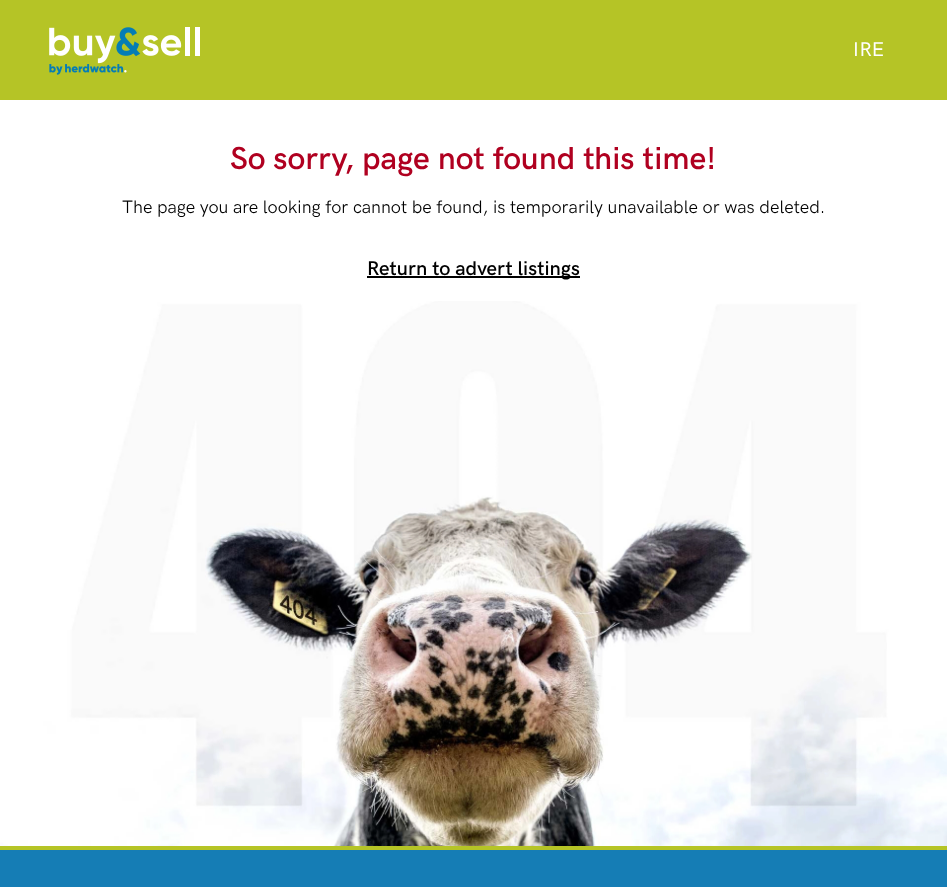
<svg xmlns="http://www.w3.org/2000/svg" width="947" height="887">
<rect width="100%" height="100%" fill="#fff"/>
<rect width="947" height="100" fill="#b5c426"/>
<image x="49" y="27" width="151" height="48" href="media/1.png"/>
<text x="853" y="56" style="font-family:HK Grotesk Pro;font-size:20px;font-weight:500;fill:#fff">IRE</text>
<text x="230" y="169" style="font-family:HK Grotesk Pro;font-size:32px;font-weight:600;fill:#b00020">So sorry, page not found this time!</text>
<text x="122" y="213" style="font-family:HK Grotesk Pro;font-size:18px;fill:#000">The page you are looking for cannot be found, is temporarily unavailable or was deleted.</text>
<rect x="367" y="276" width="213" height="2" fill="#000"/>
<text x="367" y="275" style="font-family:HK Grotesk Pro;font-size:20px;font-weight:600;fill:#000">Return to advert listings</text>
<image x="0" y="301" width="947" height="545" href="media/2.png"/>
<rect y="850" width="947" height="37" fill="#157db5"/>
<rect y="846" width="947" height="4" fill="#b5c426"/>
</svg>
